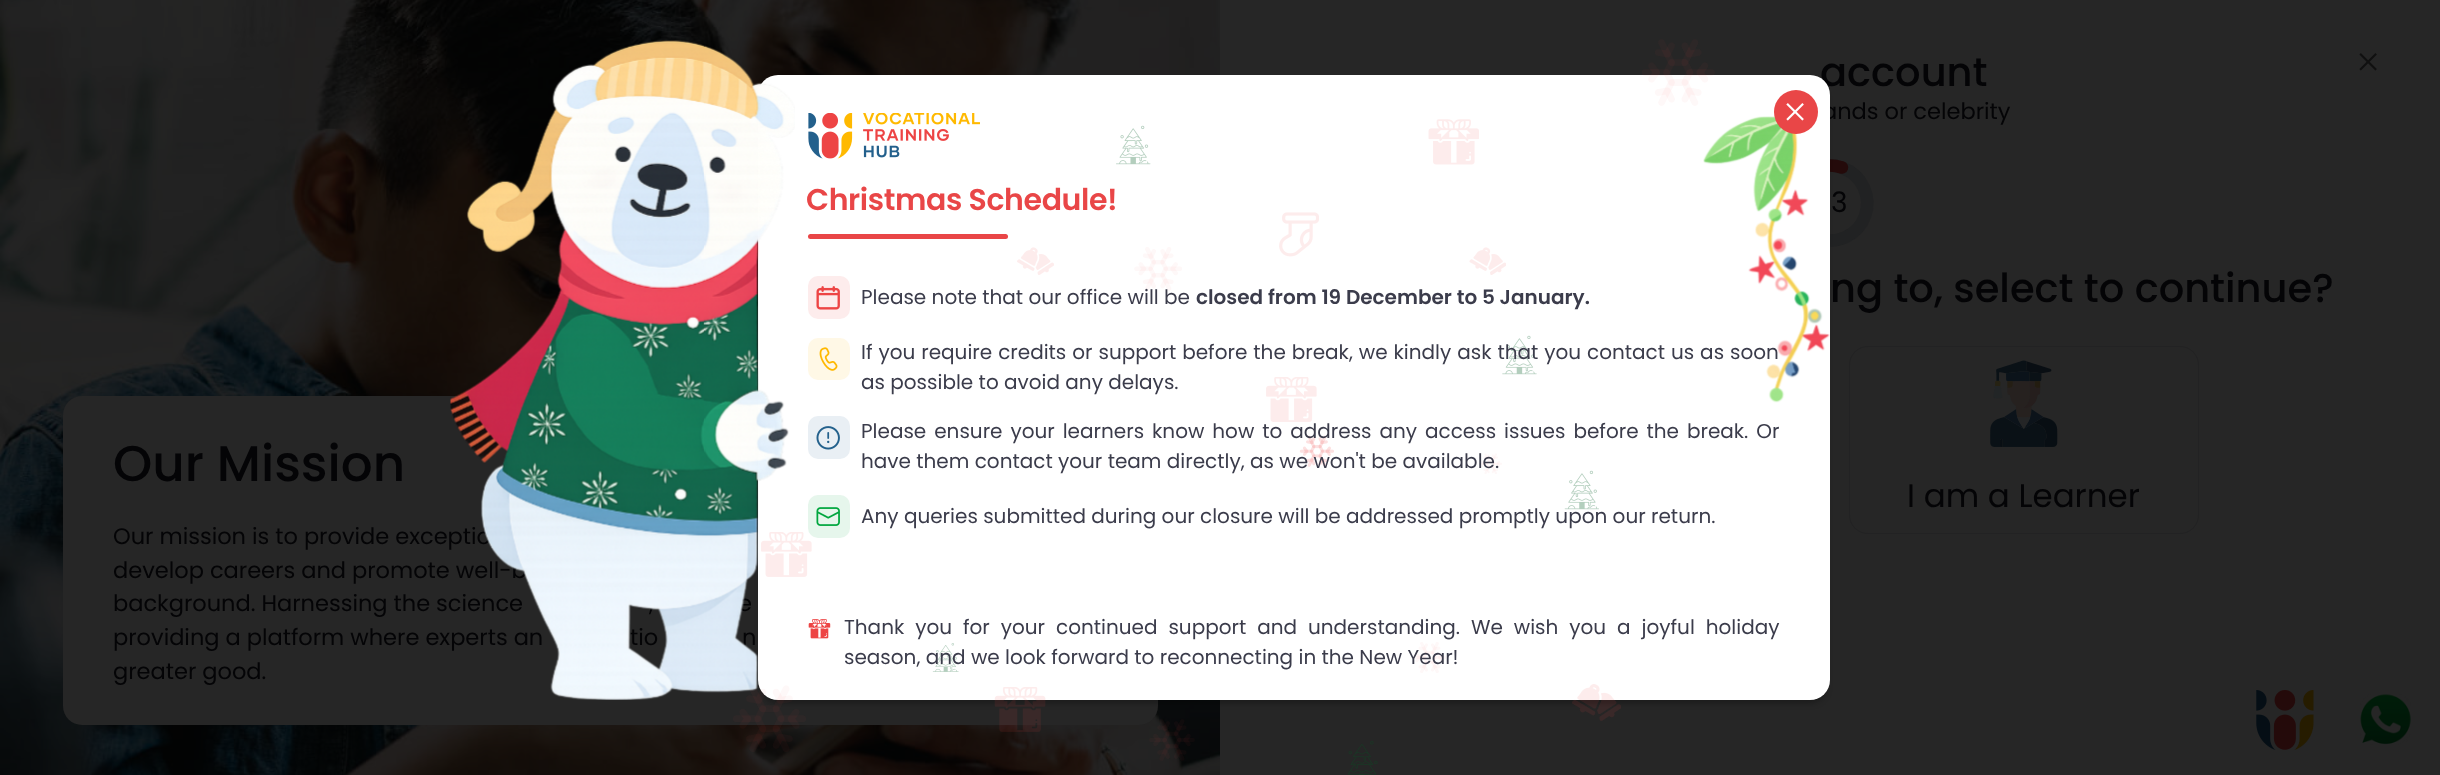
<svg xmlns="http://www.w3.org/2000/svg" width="2440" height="775">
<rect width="100%" height="100%" fill="#262626"/>
<text x="1820" y="86" style="font-family:Poppins;font-size:40px;font-weight:500;fill:#040406">account</text>
<text x="1822" y="119" style="font-family:Poppins;font-size:22.5px;fill:#040406">ands or celebrity</text>
<image x="2359" y="53" width="18" height="18" href="media/1.png"/>
<path d="M1817 238c-19.5-7-29.5-28.5-22.5-48c7.5-19.5 29-29.5 48-22c19.5 7 29.5 28.5 22.5 48c-7 19.5-28.5 29.5-48 22z" fill="none" stroke="#212223" stroke-width="12.5" stroke-linecap="round"/>
<path d="M1817 238c-19.5-7-29.5-28.5-22.5-48c7-19 28.5-29 47.5-22.5" fill="none" stroke="#240a0a" stroke-width="12.5" stroke-linecap="round"/>
<text x="1831" y="212" style="font-family:Poppins;font-size:28px;fill:#040406">3</text>
<text x="1830" y="302" style="font-family:Poppins;font-size:40px;font-weight:500;fill:#040406">ng to, select to continue?</text>
<rect x="1849.5" y="346.5" width="349" height="187" rx="18.5" fill="none" stroke="#222223"/>
<image x="1990" y="360" width="68" height="87" href="media/2.png"/>
<text x="1907" y="507" style="font-family:Poppins;font-size:32.5px;fill:#040406">I am a Learner</text>
<image x="0" y="0" width="1220" height="775" href="media/3.png"/>
<rect x="63" y="396" width="1095" height="329" rx="19" fill="#262626"/>
<text x="113" y="481" style="font-family:Poppins;font-size:50px;font-weight:500;fill:#040406">Our Mission</text>
<text x="113" y="544" style="font-family:Poppins;font-size:22.5px;fill:#040406">Our mission is to provide exceptio</text>
<text x="113" y="578" style="font-family:Poppins;font-size:22.5px;fill:#040406">develop careers and promote well-b</text>
<text x="113" y="611" style="font-family:Poppins;font-size:22.5px;fill:#040406">background. Harnessing the science</text>
<text x="649" y="611" style="font-family:Poppins;font-size:22.5px;fill:#040406">,</text>
<text x="738" y="611" style="font-family:Poppins;font-size:22.5px;fill:#040406">e</text>
<text x="113" y="645" style="font-family:Poppins;font-size:22.5px;fill:#040406">providing a platform where experts an</text>
<text x="630" y="645" style="font-family:Poppins;font-size:22.5px;fill:#040406">tio</text>
<text x="742" y="645" style="font-family:Poppins;font-size:22.5px;fill:#040406">n</text>
<text x="113" y="679" style="font-family:Poppins;font-size:22.5px;fill:#040406">greater good.</text>
<image x="2256" y="690" width="58" height="60" href="media/4.png"/>
<image x="2360" y="694" width="51" height="51" href="media/5.png"/>
<rect x="761" y="85" width="1065" height="618" rx="16" fill="#0000004d" filter="blur(3px)"/>
<rect x="758" y="75" width="1072" height="625" rx="20" fill="#fff"/>
<image x="761" y="532" width="51" height="45" href="media/17.png"/>
<image x="733" y="685" width="73" height="67" href="media/23.png"/>
<image x="450" y="40" width="345" height="660" href="media/6.png"/>
<image x="1642" y="39" width="73" height="67" href="media/7.png"/>
<image x="1703" y="116" width="127" height="287" href="media/11.png"/>
<circle cx="1796" cy="112" r="22" fill="#e94647"/>
<image x="1786" y="103" width="18" height="18" href="media/8.png"/>
<image x="1116" y="125" width="35" height="40" href="media/9.png"/>
<image x="1428" y="119" width="51" height="46" href="media/10.png"/>
<image x="1279" y="212" width="40" height="45" href="media/12.png"/>
<image x="1017" y="247" width="37" height="28" href="media/13.png"/>
<image x="1134" y="247" width="48" height="44" href="media/14.png"/>
<image x="1469" y="247" width="37" height="28" href="media/15.png"/>
<image x="1502" y="335" width="35" height="40" href="media/16.png"/>
<image x="1266" y="377" width="51" height="45" href="media/17.png"/>
<image x="1299" y="435" width="35" height="32" href="media/18.png"/>
<image x="1479" y="453" width="23" height="21" href="media/19.png"/>
<image x="1564" y="470" width="35" height="40" href="media/20.png"/>
<image x="932" y="643" width="27" height="29" href="media/21.png"/>
<image x="1412" y="642" width="35" height="31" href="media/22.png"/>
<image x="994" y="687" width="52" height="45" href="media/24.png"/>
<image x="1572" y="684" width="49" height="37" href="media/25.png"/>
<image x="1149" y="719" width="46" height="42" href="media/26.png"/>
<image x="1348" y="741" width="30" height="34" href="media/27.png"/>
<image x="808" y="113" width="172" height="46" href="media/28.png"/>
<text x="806" y="210" style="font-family:Poppins;font-size:30px;font-weight:600;letter-spacing:-0.4px;fill:#e94647">Christmas Schedule!</text>
<rect x="808" y="234" width="200" height="5" rx="2.5" fill="#e94647"/>
<rect x="808" y="276" width="42" height="43" rx="10" fill="#fdecec"/>
<image x="816" y="286" width="24" height="24" href="media/29.png"/>
<text x="861" y="304" style="font-family:Poppins;font-size:20px;fill:#3b3c4b">Please note that our office will be</text>
<text x="1196" y="304" style="font-family:Poppins;font-size:20px;font-weight:600;fill:#3b3c4b">closed from 19 December to 5 January.</text>
<rect x="808" y="338" width="42" height="42" rx="10" fill="#fff8e6"/>
<image x="819" y="347" width="19" height="24" href="media/30.png"/>
<text x="861" y="359" word-spacing="0.6" style="font-family:Poppins;font-size:20px;fill:#3b3c4b">If you require credits or support before the break, we kindly ask that you contact us as soon</text>
<text x="861" y="389" style="font-family:Poppins;font-size:20px;fill:#3b3c4b">as possible to avoid any delays.</text>
<rect x="808" y="416" width="42" height="43" rx="10" fill="#e9eff4"/>
<image x="816" y="426" width="24" height="24" href="media/31.png"/>
<text x="861" y="438" word-spacing="2.6" style="font-family:Poppins;font-size:20px;fill:#3b3c4b">Please ensure your learners know how to address any access issues before the break. Or</text>
<text x="861" y="468" style="font-family:Poppins;font-size:20px;fill:#3b3c4b">have them contact your team directly, as we won't be available.</text>
<rect x="808" y="495" width="42" height="43" rx="10" fill="#e6f6ec"/>
<image x="816" y="507" width="24" height="19" href="media/32.png"/>
<text x="861" y="523" style="font-family:Poppins;font-size:20px;fill:#3b3c4b">Any queries submitted during our closure will be addressed promptly upon our return.</text>
<image x="808" y="619" width="23" height="20" href="media/33.png"/>
<text x="844" y="634" word-spacing="5.6" style="font-family:Poppins;font-size:20px;fill:#3b3c4b">Thank you for your continued support and understanding. We wish you a joyful holiday</text>
<text x="844" y="664" style="font-family:Poppins;font-size:20px;fill:#3b3c4b">season, and we look forward to reconnecting in the New Year!</text>
</svg>
